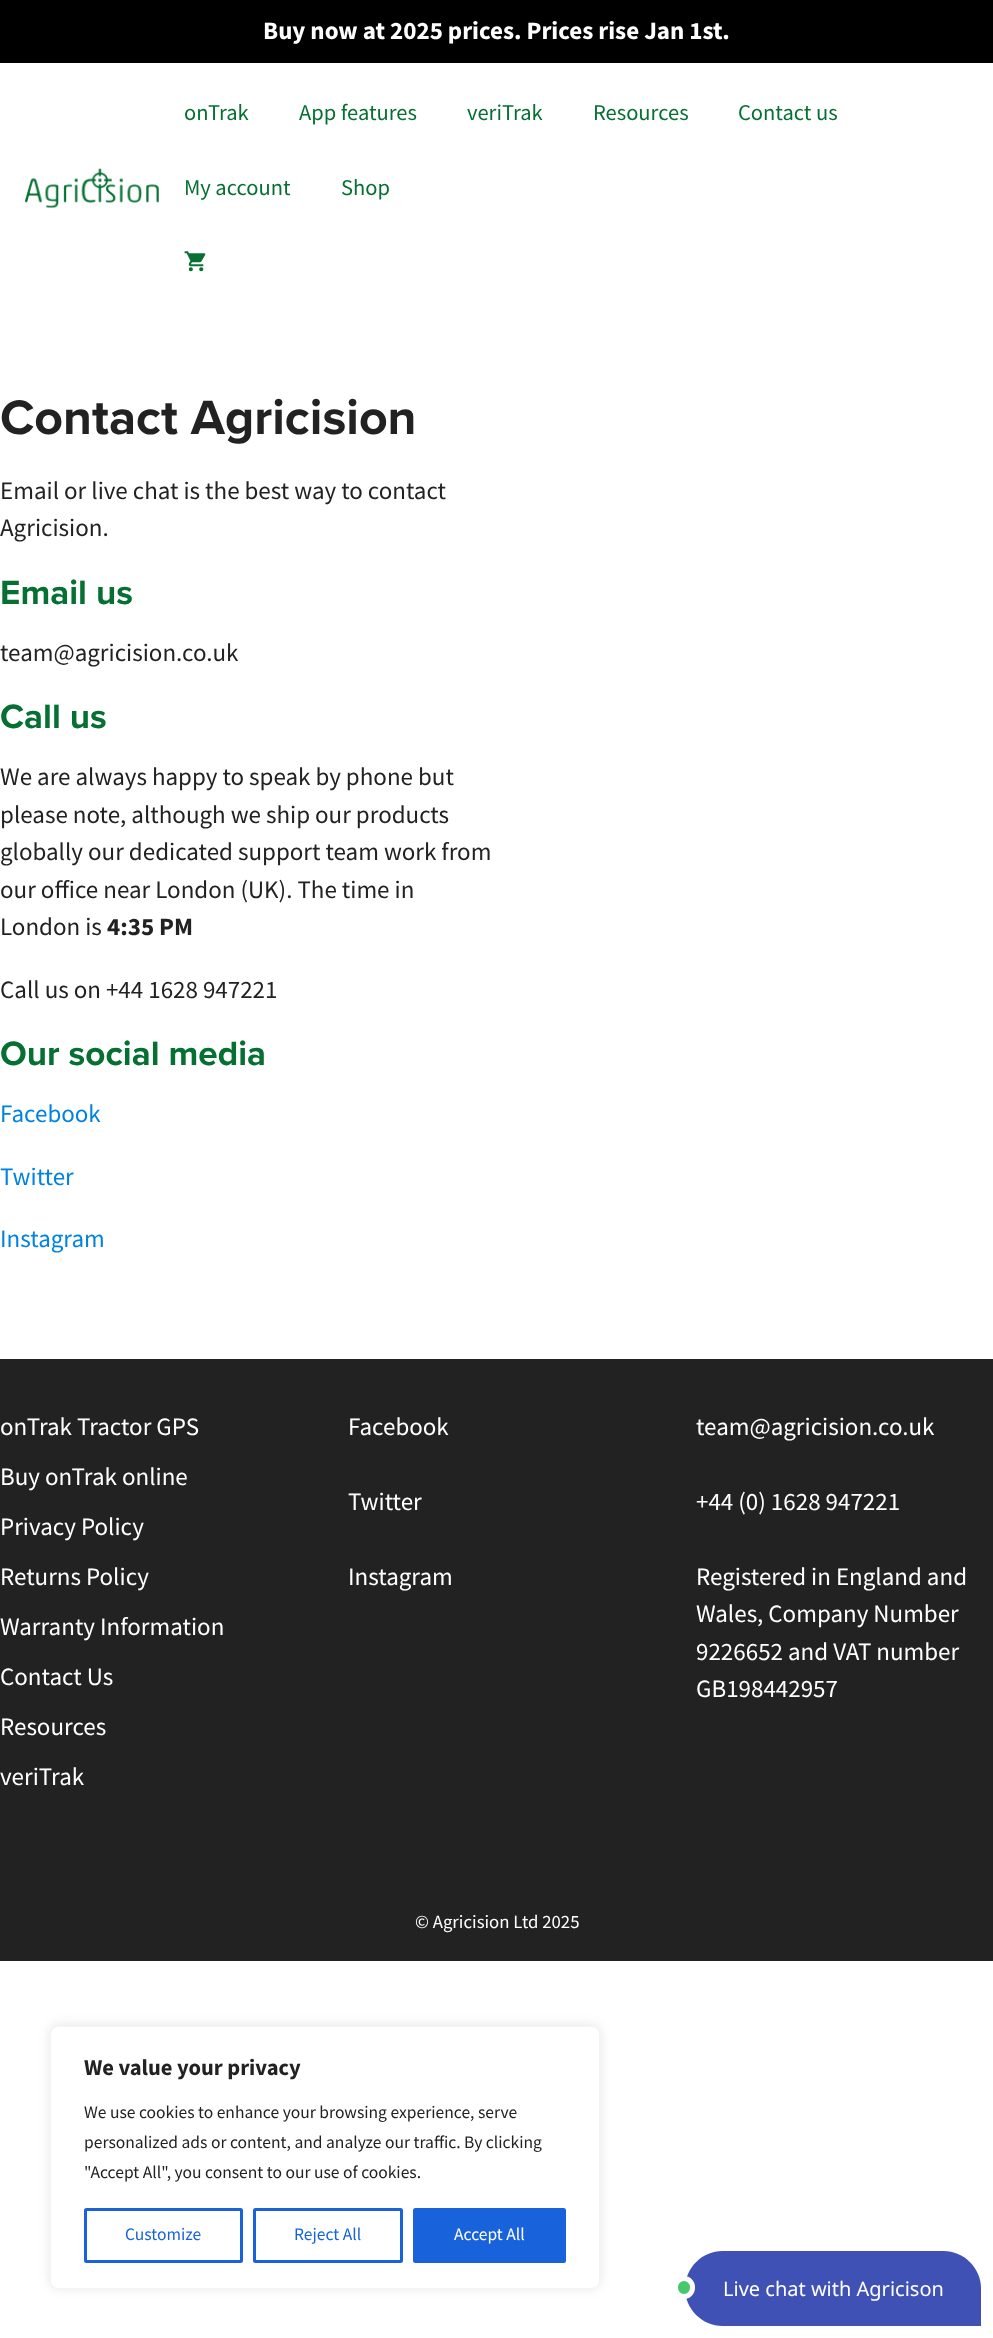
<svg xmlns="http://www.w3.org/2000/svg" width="993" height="2338">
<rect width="100%" height="100%" fill="#fff"/>
<rect width="993" height="63" fill="#000"/>
<text x="263" y="39" style="font-family:Source Sans Pro;font-size:25px;font-weight:bold;fill:#fff">Buy now at 2025 prices. Prices rise Jan 1st.</text>
<image x="25" y="168" width="134" height="40" href="media/1.png"/>
<text x="184" y="120" style="font-family:Source Sans Pro;font-size:22.5px;fill:#067032">onTrak</text>
<text x="299" y="120" style="font-family:Source Sans Pro;font-size:22.5px;fill:#067032">App features</text>
<text x="467" y="120" style="font-family:Source Sans Pro;font-size:22.5px;fill:#067032">veriTrak</text>
<text x="593" y="120" style="font-family:Source Sans Pro;font-size:22.5px;fill:#067032">Resources</text>
<text x="738" y="120" style="font-family:Source Sans Pro;font-size:22.5px;fill:#067032">Contact us</text>
<text x="184" y="195" style="font-family:Source Sans Pro;font-size:22.5px;fill:#067032">My account</text>
<text x="341" y="195" style="font-family:Source Sans Pro;font-size:22.5px;fill:#067032">Shop</text>
<image x="184" y="251" width="22" height="21" href="media/2.png"/>
<text x="0" y="434" style="font-family:Proxima Nova;font-size:50px;font-weight:bold;fill:#222">Contact Agricision</text>
<text x="0" y="499" style="font-family:Source Sans Pro;font-size:25px;fill:#222">Email or live chat is the best way to contact</text>
<text x="0" y="536" style="font-family:Source Sans Pro;font-size:25px;fill:#222">Agricision.</text>
<text x="0" y="604" style="font-family:Proxima Nova;font-size:35px;font-weight:bold;fill:#067032">Email us</text>
<text x="0" y="661" style="font-family:Source Sans Pro;font-size:25px;fill:#222">team@agricision.co.uk</text>
<text x="0" y="728" style="font-family:Proxima Nova;font-size:35px;font-weight:bold;fill:#067032">Call us</text>
<text x="0" y="785" style="font-family:Source Sans Pro;font-size:25px;fill:#222">We are always happy to speak by phone but</text>
<text x="0" y="823" style="font-family:Source Sans Pro;font-size:25px;fill:#222">please note, although we ship our products</text>
<text x="0" y="860" style="font-family:Source Sans Pro;font-size:25px;fill:#222">globally our dedicated support team work from</text>
<text x="0" y="898" style="font-family:Source Sans Pro;font-size:25px;fill:#222">our office near London (UK). The time in</text>
<text x="0" y="935" style="font-family:Source Sans Pro;font-size:25px;fill:#222">London is</text>
<text x="107" y="935" style="font-family:Source Sans Pro;font-size:25px;font-weight:bold;fill:#222">4:35 PM</text>
<text x="0" y="998" style="font-family:Source Sans Pro;font-size:25px;fill:#222">Call us on +44 1628 947221</text>
<text x="0" y="1065" style="font-family:Proxima Nova;font-size:35px;font-weight:bold;fill:#067032">Our social media</text>
<text x="0" y="1122" style="font-family:Source Sans Pro;font-size:25px;fill:#0083df">Facebook</text>
<text x="0" y="1185" style="font-family:Source Sans Pro;font-size:25px;fill:#0083df">Twitter</text>
<text x="0" y="1247" style="font-family:Source Sans Pro;font-size:25px;fill:#0083df">Instagram</text>
<rect y="1359" width="993" height="602" fill="#222"/>
<text x="0" y="1435" style="font-family:Source Sans Pro;font-size:25px;fill:#fff">onTrak Tractor GPS</text>
<text x="0" y="1485" style="font-family:Source Sans Pro;font-size:25px;fill:#fff">Buy onTrak online</text>
<text x="0" y="1535" style="font-family:Source Sans Pro;font-size:25px;fill:#fff">Privacy Policy</text>
<text x="0" y="1585" style="font-family:Source Sans Pro;font-size:25px;fill:#fff">Returns Policy</text>
<text x="0" y="1635" style="font-family:Source Sans Pro;font-size:25px;fill:#fff">Warranty Information</text>
<text x="0" y="1685" style="font-family:Source Sans Pro;font-size:25px;fill:#fff">Contact Us</text>
<text x="0" y="1735" style="font-family:Source Sans Pro;font-size:25px;fill:#fff">Resources</text>
<text x="0" y="1785" style="font-family:Source Sans Pro;font-size:25px;fill:#fff">veriTrak</text>
<text x="348" y="1435" style="font-family:Source Sans Pro;font-size:25px;fill:#fff">Facebook</text>
<text x="348" y="1510" style="font-family:Source Sans Pro;font-size:25px;fill:#fff">Twitter</text>
<text x="348" y="1585" style="font-family:Source Sans Pro;font-size:25px;fill:#fff">Instagram</text>
<text x="696" y="1435" style="font-family:Source Sans Pro;font-size:25px;fill:#fff">team@agricision.co.uk</text>
<text x="696" y="1510" style="font-family:Source Sans Pro;font-size:25px;fill:#fff">+44 (0) 1628 947221</text>
<text x="696" y="1585" style="font-family:Source Sans Pro;font-size:25px;fill:#fff">Registered in England and</text>
<text x="696" y="1622" style="font-family:Source Sans Pro;font-size:25px;fill:#fff">Wales, Company Number</text>
<text x="696" y="1660" style="font-family:Source Sans Pro;font-size:25px;fill:#fff">9226652 and VAT number</text>
<text x="696" y="1697" style="font-family:Source Sans Pro;font-size:25px;fill:#fff">GB198442957</text>
<text x="415" y="1928" style="font-family:Source Sans Pro;font-size:18.75px;fill:#fff">© Agricision Ltd 2025</text>
<rect x="50" y="2025" width="550" height="263" rx="8" fill="#acabab4d" filter="blur(6px)"/>
<rect x="50.5" y="2026.5" width="549" height="262" rx="7.5" fill="#fff" stroke="#f4f4f4"/>
<text x="84" y="2075" style="font-family:Source Sans Pro;font-size:22.5px;font-weight:bold;fill:#222">We value your privacy</text>
<text x="84" y="2118" style="font-family:Source Sans Pro;font-size:17.5px;fill:#222">We use cookies to enhance your browsing experience, serve</text>
<text x="84" y="2148" style="font-family:Source Sans Pro;font-size:17.5px;fill:#222">personalized ads or content, and analyze our traffic. By clicking</text>
<text x="84" y="2178" style="font-family:Source Sans Pro;font-size:17.5px;fill:#222">"Accept All", you consent to our use of cookies.</text>
<rect x="85.5" y="2209.5" width="156" height="52" rx="1" fill="none" stroke="#1863dc" stroke-width="3"/>
<text x="125" y="2240" style="font-family:Source Sans Pro;font-size:17.5px;fill:#1863dc">Customize</text>
<rect x="254.5" y="2209.5" width="147" height="52" rx="1" fill="none" stroke="#1863dc" stroke-width="3"/>
<text x="294" y="2240" style="font-family:Source Sans Pro;font-size:17.5px;fill:#1863dc">Reject All</text>
<rect x="414.5" y="2209.5" width="150" height="52" rx="1" fill="#1863dc" stroke="#1863dc" stroke-width="3"/>
<text x="454" y="2240" style="font-family:Source Sans Pro;font-size:17.5px;fill:#fff">Accept All</text>
<path d="M722.5 2251h221c20.5 0 37.5 17 37.5 37.5v37.5h-258.5c-20.5 0-37.5-17-37.5-37.5c0-20.5 17-37.5 37.5-37.5z" fill="#3f51b5"/>
<rect x="675.5" y="2278.5" width="17" height="18" rx="8.5" fill="#46c86d" stroke="#fff" stroke-width="5"/>
<text x="723" y="2296" style="font-family:Noto Sans;font-size:20px;fill:#fff">Live chat with Agricison</text>
</svg>
